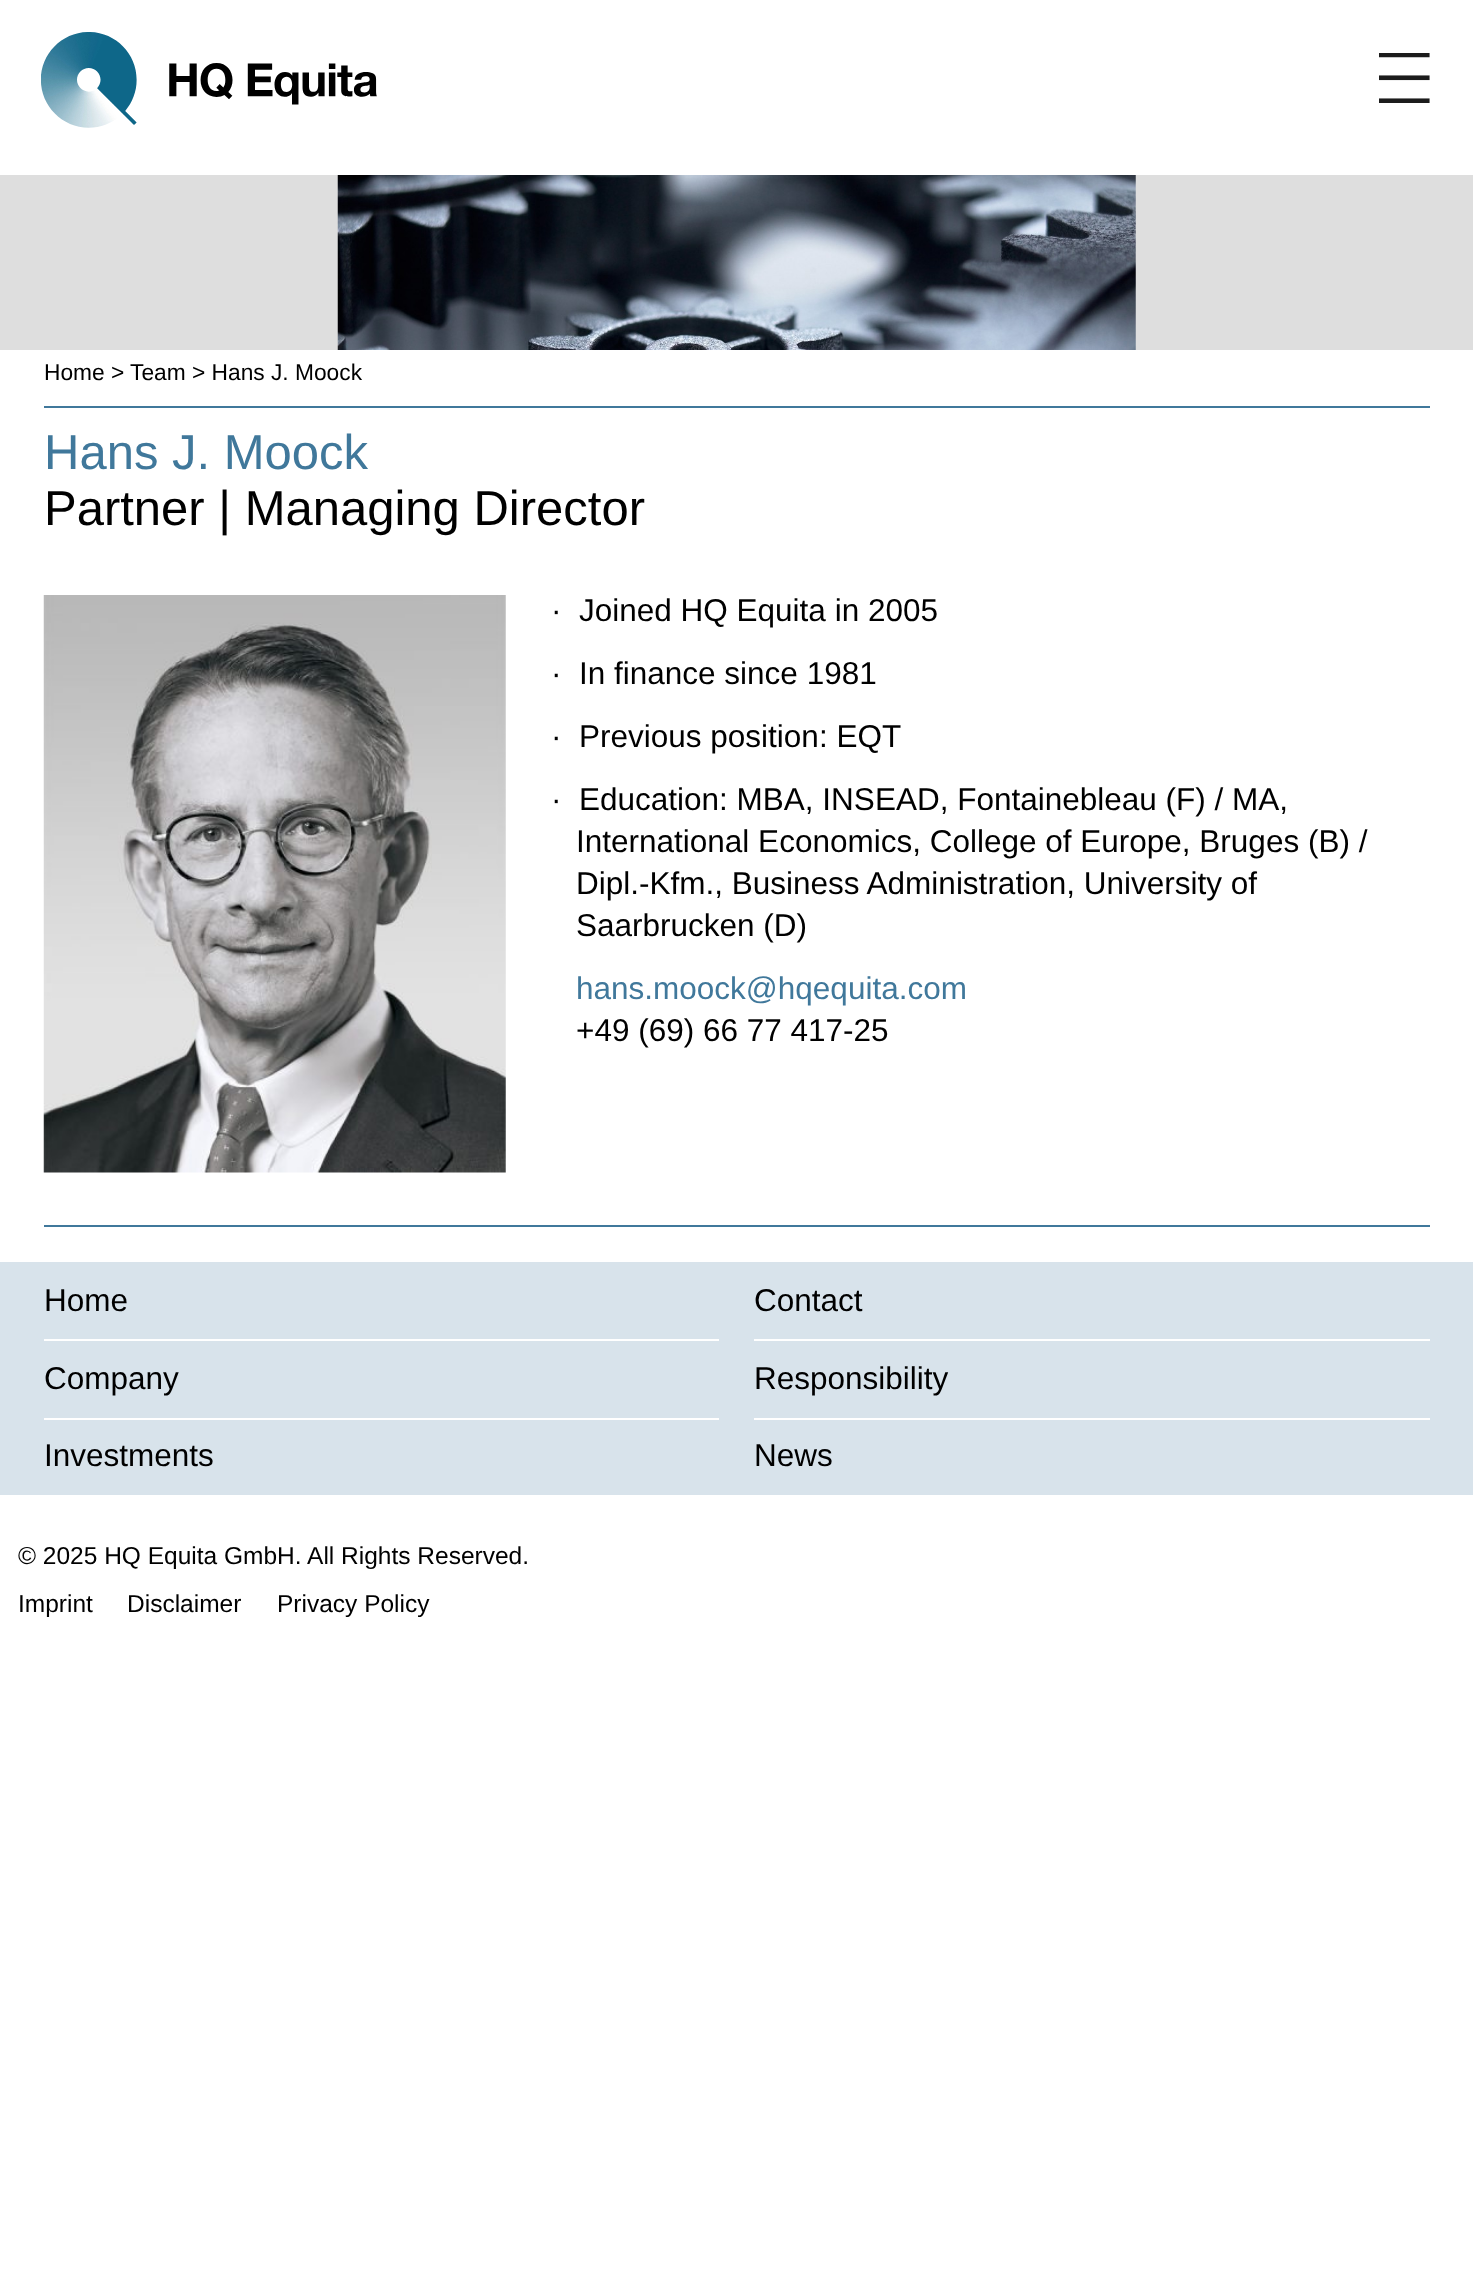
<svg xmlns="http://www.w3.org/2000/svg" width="1473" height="2288">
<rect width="100%" height="100%" fill="#fff"/>
<image x="41" y="32" width="336" height="96" href="media/1.png"/>
<image x="1379" y="53" width="51" height="50" href="media/2.png"/>
<rect y="175" width="1473" height="175" fill="#dedede"/>
<image x="337" y="175" width="799" height="175" href="media/3.png"/>
<text x="44" y="380" style="font-family:Liberation Sans;font-size:22.75px;fill:#000">Home &gt;</text>
<text x="130" y="380" style="font-family:Liberation Sans;font-size:22.75px;fill:#000">Team &gt; Hans J. Moock</text>
<rect x="44" y="406" width="1386" height="2" fill="#40789b"/>
<rect x="44" y="1225" width="1386" height="2" fill="#40789b"/>
<text x="44" y="469" style="font-family:Liberation Sans;font-size:49px;fill:#40789b">Hans J. Moock</text>
<text x="44" y="525" style="font-family:Liberation Sans;font-size:49px;fill:#000">Partner | Managing Director</text>
<image x="43" y="595" width="463" height="578" href="media/4.png"/>
<text x="551" y="621" style="font-family:Liberation Sans;font-size:31.5px;fill:#000">·</text>
<text x="579" y="621" style="font-family:Liberation Sans;font-size:31.5px;fill:#000">Joined HQ Equita in 2005</text>
<text x="551" y="684" style="font-family:Liberation Sans;font-size:31.5px;fill:#000">·</text>
<text x="579" y="684" style="font-family:Liberation Sans;font-size:31.5px;fill:#000">In finance since 1981</text>
<text x="551" y="747" style="font-family:Liberation Sans;font-size:31.5px;fill:#000">·</text>
<text x="579" y="747" style="font-family:Liberation Sans;font-size:31.5px;fill:#000">Previous position: EQT</text>
<text x="551" y="810" style="font-family:Liberation Sans;font-size:31.5px;fill:#000">·</text>
<text x="579" y="810" style="font-family:Liberation Sans;font-size:31.5px;fill:#000">Education: MBA, INSEAD, Fontainebleau (F) / MA,</text>
<text x="576" y="852" style="font-family:Liberation Sans;font-size:31.5px;fill:#000">International Economics, College of Europe, Bruges (B) /</text>
<text x="576" y="894" style="font-family:Liberation Sans;font-size:31.5px;fill:#000">Dipl.-Kfm., Business Administration, University of</text>
<text x="576" y="936" style="font-family:Liberation Sans;font-size:31.5px;fill:#000">Saarbrucken (D)</text>
<text x="576" y="999" style="font-family:Liberation Sans;font-size:31.5px;fill:#40789b">hans.moock@hqequita.com</text>
<text x="576" y="1041" style="font-family:Liberation Sans;font-size:31.5px;fill:#000">+49 (69) 66 77 417-25</text>
<rect y="1262" width="1473" height="233" fill="#d8e3eb"/>
<rect x="44" y="1339" width="675" height="2" fill="#fff"/>
<text x="44" y="1311" style="font-family:Liberation Sans;font-size:31.5px;fill:#000">Home</text>
<rect x="754" y="1339" width="676" height="2" fill="#fff"/>
<text x="754" y="1311" style="font-family:Liberation Sans;font-size:31.5px;fill:#000">Contact</text>
<rect x="44" y="1418" width="675" height="2" fill="#fff"/>
<text x="44" y="1389" style="font-family:Liberation Sans;font-size:31.5px;fill:#000">Company</text>
<rect x="754" y="1418" width="676" height="2" fill="#fff"/>
<text x="754" y="1389" style="font-family:Liberation Sans;font-size:31.5px;fill:#000">Responsibility</text>
<text x="44" y="1466" style="font-family:Liberation Sans;font-size:31.5px;fill:#000">Investments</text>
<text x="754" y="1466" style="font-family:Liberation Sans;font-size:31.5px;fill:#000">News</text>
<text x="18" y="1564" style="font-family:Liberation Sans;font-size:24.5px;fill:#000">© 2025 HQ Equita GmbH. All Rights Reserved.</text>
<text x="18" y="1612" style="font-family:Liberation Sans;font-size:24.5px;fill:#000">Imprint</text>
<text x="127" y="1612" style="font-family:Liberation Sans;font-size:24.5px;fill:#000">Disclaimer</text>
<text x="277" y="1612" style="font-family:Liberation Sans;font-size:24.5px;fill:#000">Privacy Policy</text>
</svg>
